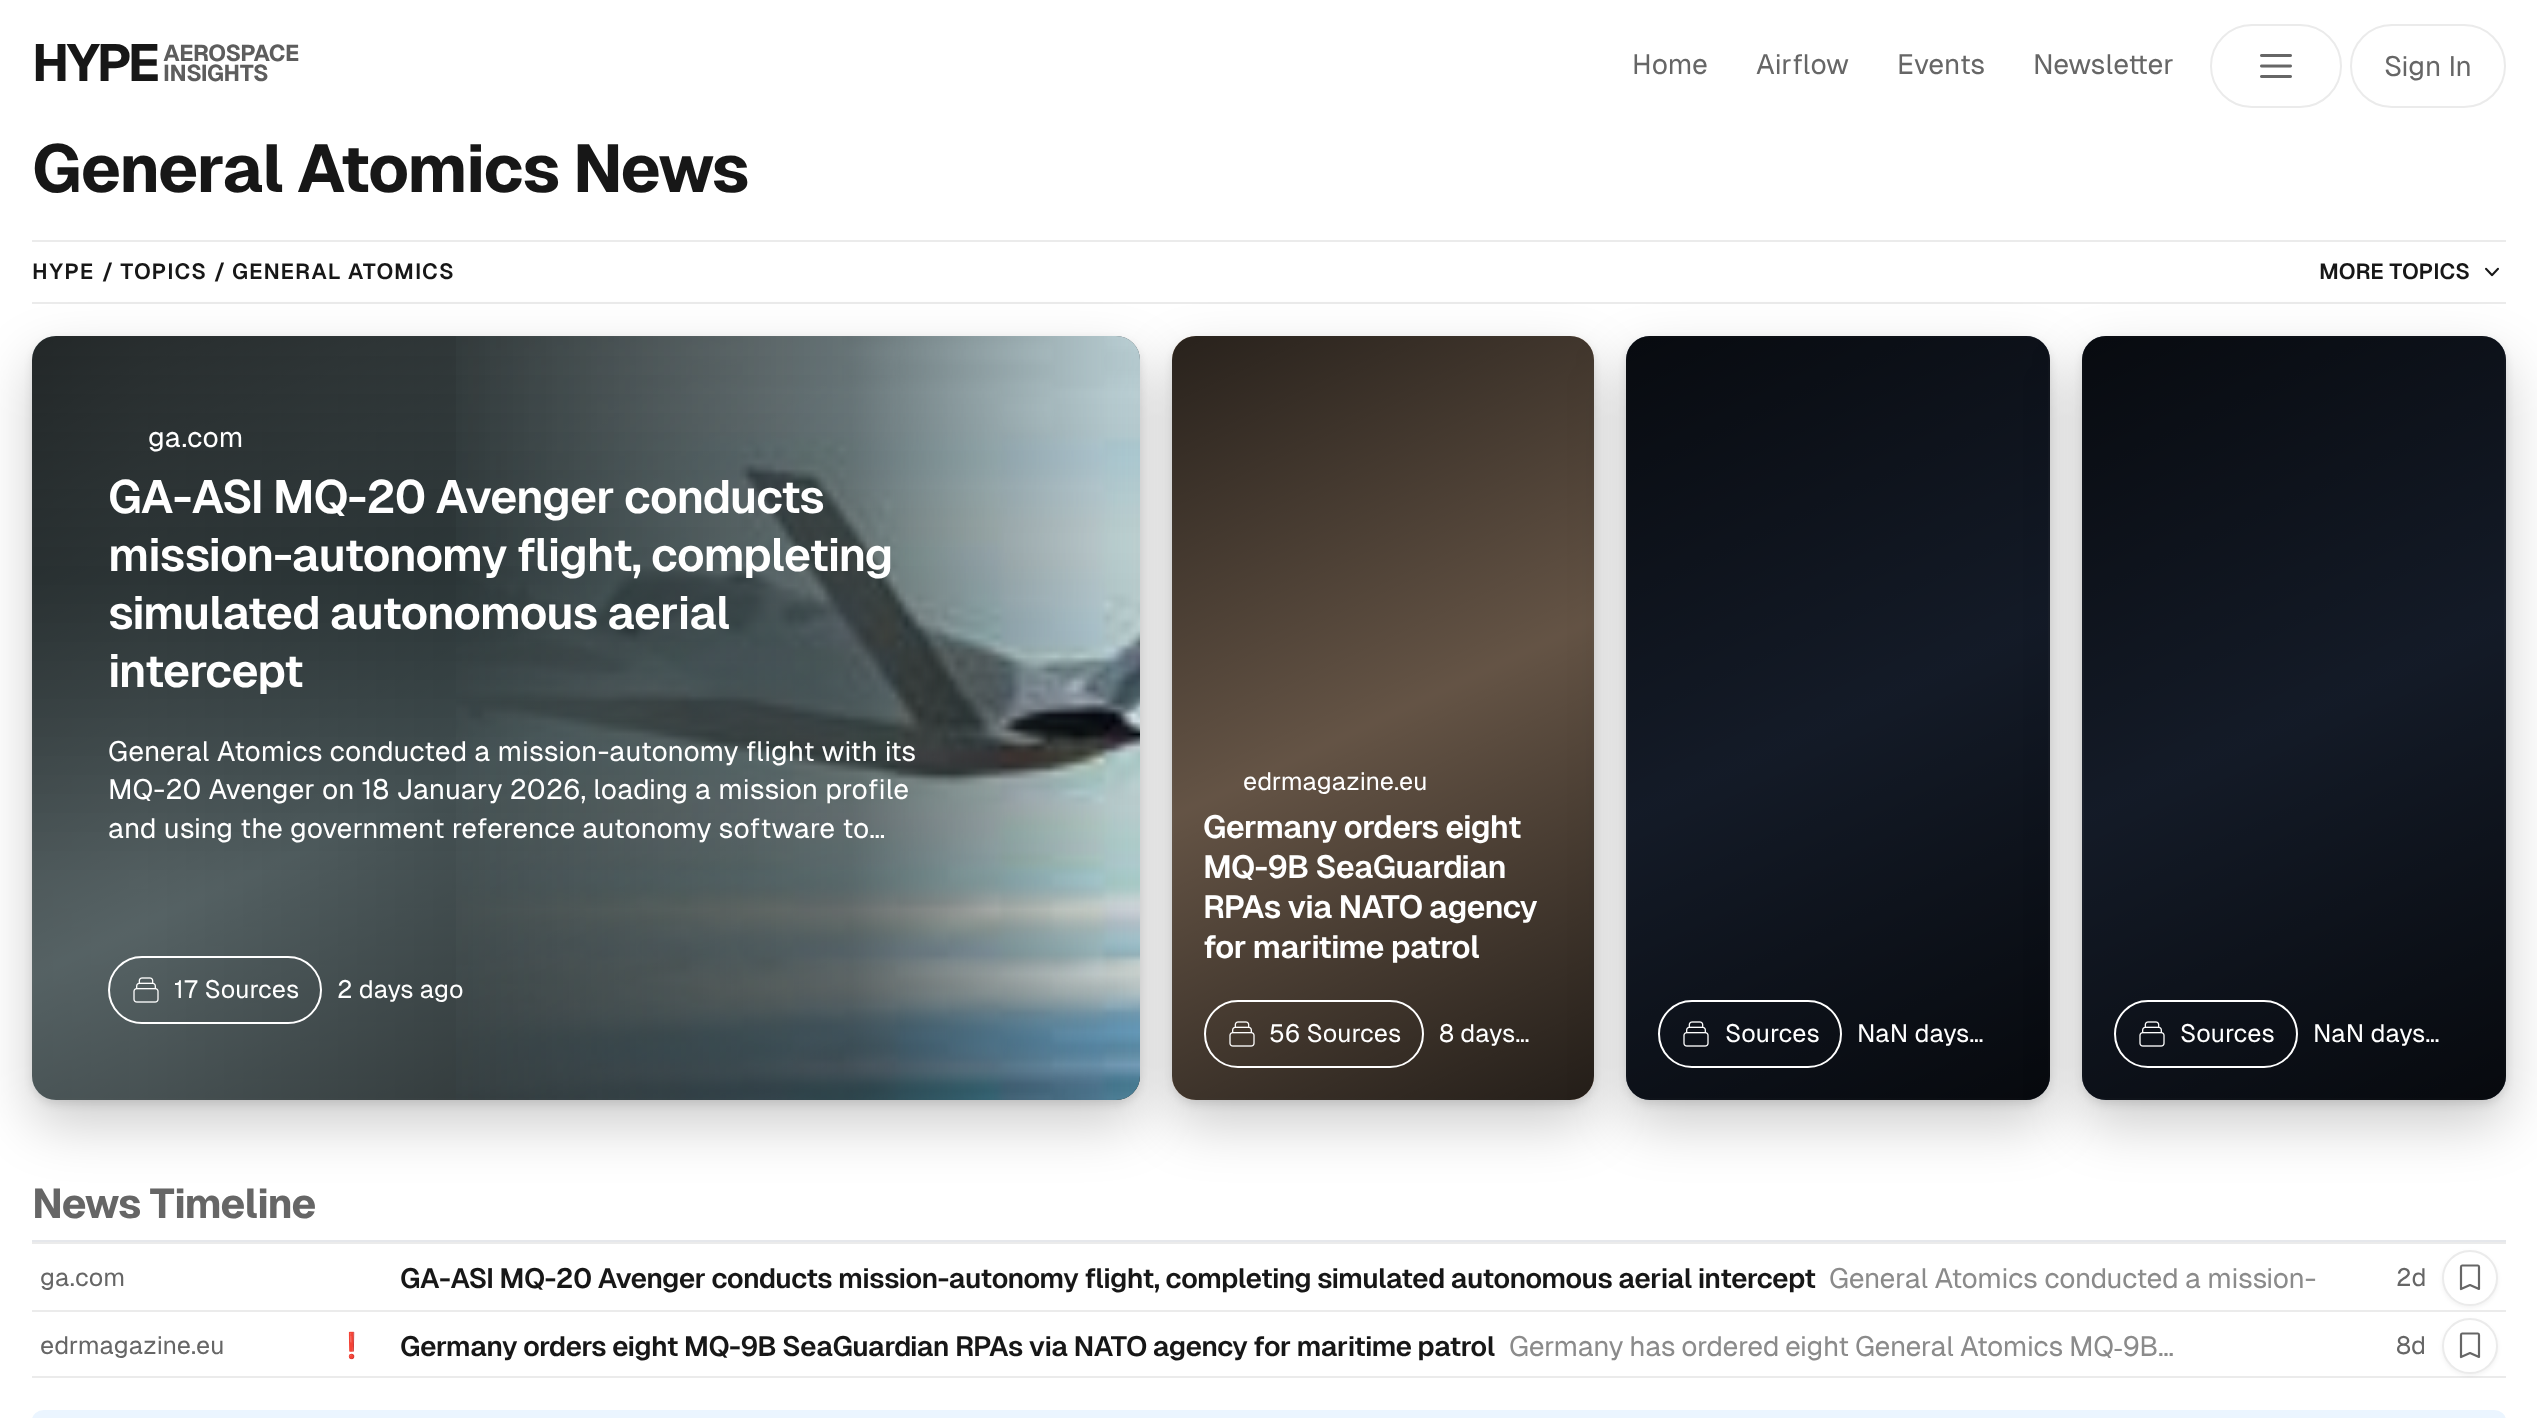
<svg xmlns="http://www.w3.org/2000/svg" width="2537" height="1418">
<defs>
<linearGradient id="g1" gradientUnits="userSpaceOnUse" x1="341" y1="192" x2="831" y2="1244"><stop offset="0" stop-color="#000" stop-opacity="0.8"/><stop offset="0.5" stop-color="#000" stop-opacity="0.5"/><stop offset="1" stop-color="#000" stop-opacity="0.82"/></linearGradient>
<linearGradient id="g2" gradientUnits="userSpaceOnUse" x1="1199" y1="323" x2="1567" y2="1113"><stop offset="0" stop-color="#000" stop-opacity="0.8"/><stop offset="0.5" stop-color="#000" stop-opacity="0.5"/><stop offset="1" stop-color="#000" stop-opacity="0.82"/></linearGradient>
<linearGradient id="g3" gradientUnits="userSpaceOnUse" x1="1654" y1="323" x2="2022" y2="1113"><stop offset="0" stop-color="#000" stop-opacity="0.8"/><stop offset="0.5" stop-color="#000" stop-opacity="0.5"/><stop offset="1" stop-color="#000" stop-opacity="0.82"/></linearGradient>
<linearGradient id="g4" gradientUnits="userSpaceOnUse" x1="2110" y1="323" x2="2478" y2="1113"><stop offset="0" stop-color="#000" stop-opacity="0.8"/><stop offset="0.5" stop-color="#000" stop-opacity="0.5"/><stop offset="1" stop-color="#000" stop-opacity="0.82"/></linearGradient>
</defs>
<rect width="100%" height="100%" fill="#fff"/>
<text x="32" y="81" style="font-family:Geist;font-size:52px;font-weight:bold;letter-spacing:-4px;fill:#171717">HYPE</text>
<text x="163" y="61" style="font-family:Geist;font-size:23px;font-weight:bold;letter-spacing:-0.5px;fill:#5d5d5d">AEROSPACE</text>
<text x="163" y="81" style="font-family:Geist;font-size:23px;font-weight:bold;letter-spacing:-0.5px;fill:#5d5d5d">INSIGHTS</text>
<text x="1632" y="74" style="font-family:Geist;font-size:28px;fill:#666">Home</text>
<text x="1756" y="74" style="font-family:Geist;font-size:28px;fill:#666">Airflow</text>
<text x="1897" y="74" style="font-family:Geist;font-size:28px;fill:#666">Events</text>
<text x="2033" y="74" style="font-family:Geist;font-size:28px;fill:#666">Newsletter</text>
<rect x="2211" y="25" width="130" height="82" rx="41" fill="none" stroke="#ebebeb" stroke-width="2"/>
<image x="2260" y="54" width="32" height="24" href="media/1.png"/>
<rect x="2351" y="25" width="154" height="82" rx="41" fill="none" stroke="#ebebeb" stroke-width="2"/>
<text x="2384" y="76" style="font-family:Geist;font-size:28px;fill:#666">Sign In</text>
<text x="32" y="192" style="font-family:Geist;font-size:67.25px;font-weight:bold;letter-spacing:-1.7px;fill:#171717">General Atomics News</text>
<rect x="32" y="240" width="2474" height="2" fill="#ebebeb"/>
<rect x="32" y="302" width="2474" height="2" fill="#ebebeb"/>
<text x="32" y="279" style="font-family:Geist;font-size:22px;font-weight:600;letter-spacing:1px;fill:#171717">HYPE</text>
<text x="102" y="279" style="font-family:Geist;font-size:22px;font-weight:600;letter-spacing:1px;fill:#171717">/</text>
<text x="120" y="279" style="font-family:Geist;font-size:22px;font-weight:600;letter-spacing:1px;fill:#171717">TOPICS</text>
<text x="214" y="279" style="font-family:Geist;font-size:22px;font-weight:600;letter-spacing:1px;fill:#171717">/</text>
<text x="232" y="279" style="font-family:Geist;font-size:22px;font-weight:600;letter-spacing:1px;fill:#171717">GENERAL ATOMICS</text>
<text x="2319" y="279" style="font-family:Geist;font-size:22px;font-weight:600;fill:#171717">MORE TOPICS</text>
<image x="2485" y="267" width="14" height="10" href="media/2.png"/>
<rect x="32" y="340" width="1108" height="764" rx="24" fill="#0000001a" filter="blur(4px)"/>
<rect x="32" y="360" width="1108" height="764" rx="24" fill="#00000033" filter="blur(28px)"/>
<image x="32" y="336" width="1108" height="764" href="media/3.png"/>
<rect x="33" y="337" width="1106" height="762" fill="none" stroke="#ffffff0d" stroke-width="2"/>
<rect x="32" y="336" width="1108" height="764" rx="24" fill="url(#g1)"/>
<text x="337" y="998" style="font-family:Geist;font-size:25px;fill:#fff">2 days ago</text>
<image x="456" y="336" width="684" height="764" href="media/4.png"/>
<text x="148" y="447" style="font-family:Geist;font-size:28px;fill:#fff">ga.com</text>
<text x="108" y="513" style="font-family:Geist;font-size:46.4px;font-weight:600;letter-spacing:-1.15px;fill:#fff">GA-ASI MQ-20 Avenger conducts</text>
<text x="108" y="571" style="font-family:Geist;font-size:46.4px;font-weight:600;letter-spacing:-1.15px;fill:#fff">mission-autonomy flight, completing</text>
<text x="108" y="629" style="font-family:Geist;font-size:46.4px;font-weight:600;letter-spacing:-1.15px;fill:#fff">simulated autonomous aerial</text>
<text x="108" y="687" style="font-family:Geist;font-size:46.4px;font-weight:600;letter-spacing:-1.15px;fill:#fff">intercept</text>
<text x="108" y="761" style="font-family:Geist;font-size:28px;fill:#fff">General Atomics conducted a mission-autonomy flight with its</text>
<text x="108" y="799" style="font-family:Geist;font-size:28px;fill:#fff">MQ-20 Avenger on 18 January 2026, loading a mission profile</text>
<text x="108" y="838" style="font-family:Geist;font-size:28px;fill:#fff">and using the government reference autonomy software to…</text>
<rect x="109" y="957" width="212" height="66" rx="33" fill="none" stroke="#fff" stroke-width="2"/>
<image x="133" y="977" width="26" height="26" href="media/5.png"/>
<text x="174" y="998" style="font-family:Geist;font-size:25px;fill:#fff">17 Sources</text>
<rect x="1172" y="340" width="422" height="764" rx="24" fill="#0000001a" filter="blur(4px)"/>
<rect x="1172" y="360" width="422" height="764" rx="24" fill="#00000033" filter="blur(28px)"/>
<rect x="1172" y="336" width="422" height="764" rx="24" fill="#c8a78a"/>
<rect x="1173" y="337" width="420" height="762" fill="none" stroke="#ffffff0d" stroke-width="2"/>
<rect x="1172" y="336" width="422" height="764" rx="24" fill="url(#g2)"/>
<text x="1243" y="790" style="font-family:Geist;font-size:25px;fill:#fff">edrmagazine.eu</text>
<text x="1203" y="838" style="font-family:Geist;font-size:32px;font-weight:600;letter-spacing:-0.8px;fill:#fff">Germany orders eight</text>
<text x="1203" y="878" style="font-family:Geist;font-size:32px;font-weight:600;letter-spacing:-0.8px;fill:#fff">MQ-9B SeaGuardian</text>
<text x="1203" y="918" style="font-family:Geist;font-size:32px;font-weight:600;letter-spacing:-0.8px;fill:#fff">RPAs via NATO agency</text>
<text x="1203" y="958" style="font-family:Geist;font-size:32px;font-weight:600;letter-spacing:-0.8px;fill:#fff">for maritime patrol</text>
<rect x="1205" y="1001" width="218" height="66" rx="33" fill="none" stroke="#fff" stroke-width="2"/>
<image x="1229" y="1021" width="26" height="26" href="media/6.png"/>
<text x="1269" y="1042" style="font-family:Geist;font-size:25px;fill:#fff">56 Sources</text>
<text x="1439" y="1042" style="font-family:Geist;font-size:25px;fill:#fff">8 days…</text>
<rect x="1626" y="340" width="424" height="764" rx="24" fill="#0000001a" filter="blur(4px)"/>
<rect x="1626" y="360" width="424" height="764" rx="24" fill="#00000033" filter="blur(28px)"/>
<rect x="1626" y="336" width="424" height="764" rx="24" fill="#27354e"/>
<rect x="1627" y="337" width="422" height="762" fill="none" stroke="#ffffff0d" stroke-width="2"/>
<rect x="1626" y="336" width="424" height="764" rx="24" fill="url(#g3)"/>
<rect x="1659" y="1001" width="182" height="66" rx="33" fill="none" stroke="#fff" stroke-width="2"/>
<image x="1683" y="1021" width="26" height="26" href="media/7.png"/>
<text x="1725" y="1042" style="font-family:Geist;font-size:25px;fill:#fff">Sources</text>
<text x="1857" y="1042" style="font-family:Geist;font-size:25px;fill:#fff">NaN days…</text>
<rect x="2082" y="340" width="424" height="764" rx="24" fill="#0000001a" filter="blur(4px)"/>
<rect x="2082" y="360" width="424" height="764" rx="24" fill="#00000033" filter="blur(28px)"/>
<rect x="2082" y="336" width="424" height="764" rx="24" fill="#27354e"/>
<rect x="2083" y="337" width="422" height="762" fill="none" stroke="#ffffff0d" stroke-width="2"/>
<rect x="2082" y="336" width="424" height="764" rx="24" fill="url(#g4)"/>
<rect x="2115" y="1001" width="182" height="66" rx="33" fill="none" stroke="#fff" stroke-width="2"/>
<image x="2139" y="1021" width="26" height="26" href="media/7.png"/>
<text x="2180" y="1042" style="font-family:Geist;font-size:25px;fill:#fff">Sources</text>
<text x="2313" y="1042" style="font-family:Geist;font-size:25px;fill:#fff">NaN days…</text>
<rect x="32" y="1240" width="2474" height="2" fill="#e5e7eb"/>
<text x="32" y="1218" style="font-family:Geist;font-size:41.5px;font-weight:bold;letter-spacing:-1px;fill:#666">News Timeline</text>
<rect x="32" y="1242" width="2474" height="2" fill="#ebebeb"/>
<text x="40" y="1286" style="font-family:Geist;font-size:25px;fill:#666">ga.com</text>
<text x="400" y="1288" style="font-family:Geist;font-size:28px;font-weight:600;letter-spacing:-0.7px;fill:#171717">GA-ASI MQ-20 Avenger conducts mission-autonomy flight, completing simulated autonomous aerial intercept</text>
<text x="1829" y="1288" style="font-family:Geist;font-size:28px;letter-spacing:-0.4px;fill:#8b8b8b">General Atomics conducted a mission-</text>
<text x="2396" y="1286" style="font-family:Geist;font-size:25px;fill:#666">2d</text>
<rect x="2442" y="1252" width="56" height="56" rx="28" fill="#0000000d" filter="blur(2px)"/>
<circle cx="2470" cy="1278" r="27" fill="#fff" stroke="#ebebeb" stroke-width="2"/>
<path d="M2462 1265.5h16c.5 0 1 .5 1 1.5v22l-9-4l-9 4v-22c0-1 .5-1.5 1-1.5z" fill="none" stroke="#666" stroke-width="2.2" stroke-linecap="round" stroke-linejoin="round"/>
<rect x="32" y="1310" width="2474" height="2" fill="#ebebeb"/>
<rect x="32" y="1376" width="2474" height="2" fill="#ebebeb"/>
<text x="40" y="1354" style="font-family:Geist;font-size:25px;fill:#666">edrmagazine.eu</text>
<text x="336" y="1354" style="font-family:Noto Color Emoji;font-size:25px;fill:#666">❗️</text>
<text x="400" y="1356" style="font-family:Geist;font-size:28px;font-weight:600;letter-spacing:-0.7px;fill:#171717">Germany orders eight MQ-9B SeaGuardian RPAs via NATO agency for maritime patrol</text>
<text x="1509" y="1356" word-spacing="-0.5" style="font-family:Geist;font-size:28px;letter-spacing:-0.4px;fill:#8b8b8b">Germany has ordered eight General Atomics MQ‑9B…</text>
<text x="2396" y="1354" style="font-family:Geist;font-size:25px;fill:#666">8d</text>
<rect x="2442" y="1320" width="56" height="56" rx="28" fill="#0000000d" filter="blur(2px)"/>
<circle cx="2470" cy="1346" r="27" fill="#fff" stroke="#ebebeb" stroke-width="2"/>
<path d="M2462 1333.5h16c.5 0 1 .5 1 1.5v22l-9-4l-9 4v-22c0-1 .5-1.5 1-1.5z" fill="none" stroke="#666" stroke-width="2.2" stroke-linecap="round" stroke-linejoin="round"/>
<rect x="32" y="1410" width="2474" height="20" rx="12" fill="#ebf5ff"/>
</svg>
